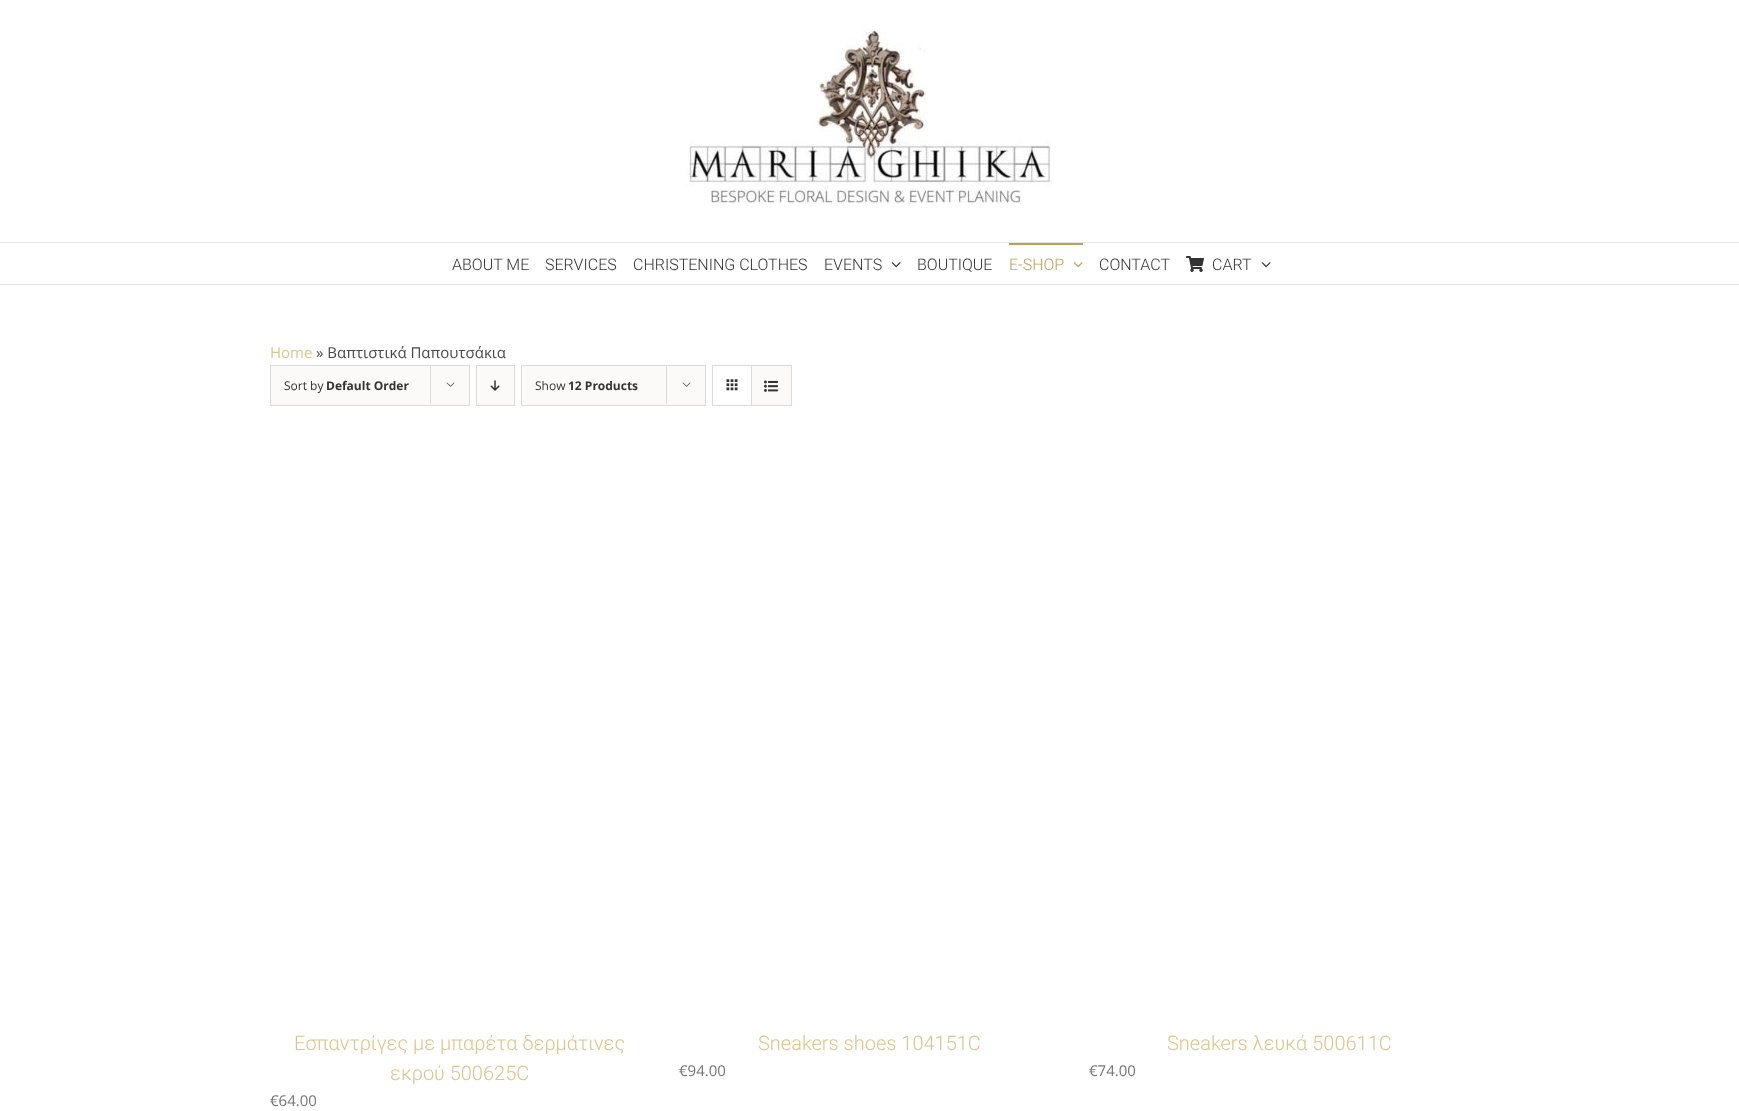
<svg xmlns="http://www.w3.org/2000/svg" width="1739" height="1111">
<rect width="100%" height="100%" fill="#fff"/>
<rect y="242" width="1739" height="1" fill="#e5e5e5"/>
<image x="686" y="28" width="365" height="176" href="media/1.png"/>
<rect y="284" width="1739" height="1" fill="#e5e5e5"/>
<text x="452" y="270" style="font-family:Roboto;font-size:16px;font-weight:300;fill:#333">ABOUT ME</text>
<text x="545" y="270" style="font-family:Roboto;font-size:16px;font-weight:300;fill:#333">SERVICES</text>
<text x="633" y="270" style="font-family:Roboto;font-size:16px;font-weight:300;fill:#333">CHRISTENING CLOTHES</text>
<text x="824" y="270" style="font-family:Roboto;font-size:16px;font-weight:300;fill:#333">EVENTS</text>
<image x="891" y="262" width="10" height="6" href="media/2.png"/>
<text x="917" y="270" style="font-family:Roboto;font-size:16px;font-weight:300;fill:#333">BOUTIQUE</text>
<rect x="1009" y="243" width="74" height="2" fill="#b9a155"/>
<text x="1009" y="270" style="font-family:Roboto;font-size:16px;font-weight:300;fill:#b9a155">E-SHOP</text>
<image x="1073" y="262" width="10" height="6" href="media/3.png"/>
<text x="1099" y="270" style="font-family:Roboto;font-size:16px;font-weight:300;fill:#333">CONTACT</text>
<image x="1186" y="256" width="18" height="16" href="media/4.png"/>
<text x="1212" y="270" style="font-family:Roboto;font-size:16px;font-weight:300;fill:#333">CART</text>
<image x="1261" y="262" width="10" height="6" href="media/2.png"/>
<text x="270" y="358" style="font-family:Open Sans;font-size:15px;fill:#dec48c">Home</text>
<text x="316" y="358" style="font-family:Open Sans;font-size:15px;fill:#494949">» Βαπτιστικά Παπουτσάκια</text>
<rect x="270.5" y="365.5" width="199" height="40" fill="#fbfaf9" stroke="#dbdbdb"/>
<text x="284" y="390" style="font-family:Open Sans;font-size:12px;fill:#333">Sort by</text>
<text x="326" y="390" style="font-family:Open Sans;font-size:12px;font-weight:bold;fill:#333">Default Order</text>
<rect x="430" y="365" width="1" height="39" fill="#dbdbdb"/>
<image x="446" y="382" width="9" height="5" href="media/5.png"/>
<rect x="476.5" y="365.5" width="38" height="40" fill="#fbfaf9" stroke="#dbdbdb"/>
<image x="490" y="380" width="10" height="11" href="media/6.png"/>
<rect x="521.5" y="365.5" width="184" height="40" fill="#fbfaf9" stroke="#dbdbdb"/>
<text x="535" y="390" style="font-family:Open Sans;font-size:12px;fill:#333">Show</text>
<text x="568" y="390" style="font-family:Open Sans;font-size:12px;font-weight:bold;fill:#333">12 Products</text>
<rect x="666" y="365" width="1" height="39" fill="#dbdbdb"/>
<image x="682" y="382" width="9" height="5" href="media/5.png"/>
<rect x="712.5" y="365.5" width="79" height="40" fill="none" stroke="#dbdbdb"/>
<rect x="751" y="366" width="1" height="39" fill="#dbdbdb"/>
<image x="726" y="379" width="12" height="12" href="media/7.png"/>
<rect x="752" y="366" width="39" height="39" fill="#fbfaf9"/>
<image x="764" y="380" width="14" height="12" href="media/8.png"/>
<text x="294" y="1050" style="font-family:Roboto;font-size:20px;font-weight:300;fill:#dec48c">Eσπαντρίγες με μπαρέτα δερμάτινες</text>
<text x="390" y="1080" style="font-family:Roboto;font-size:20px;font-weight:300;fill:#dec48c">εκρού 500625C</text>
<text x="270" y="1106" style="font-family:Open Sans;font-size:15px;fill:#747474">€64.00</text>
<text x="758" y="1050" style="font-family:Roboto;font-size:20px;font-weight:300;fill:#dec48c">Sneakers shoes 104151C</text>
<text x="679" y="1076" style="font-family:Open Sans;font-size:15px;fill:#747474">€94.00</text>
<text x="1167" y="1050" style="font-family:Roboto;font-size:20px;font-weight:300;fill:#dec48c">Sneakers λευκά 500611C</text>
<text x="1089" y="1076" style="font-family:Open Sans;font-size:15px;fill:#747474">€74.00</text>
</svg>
